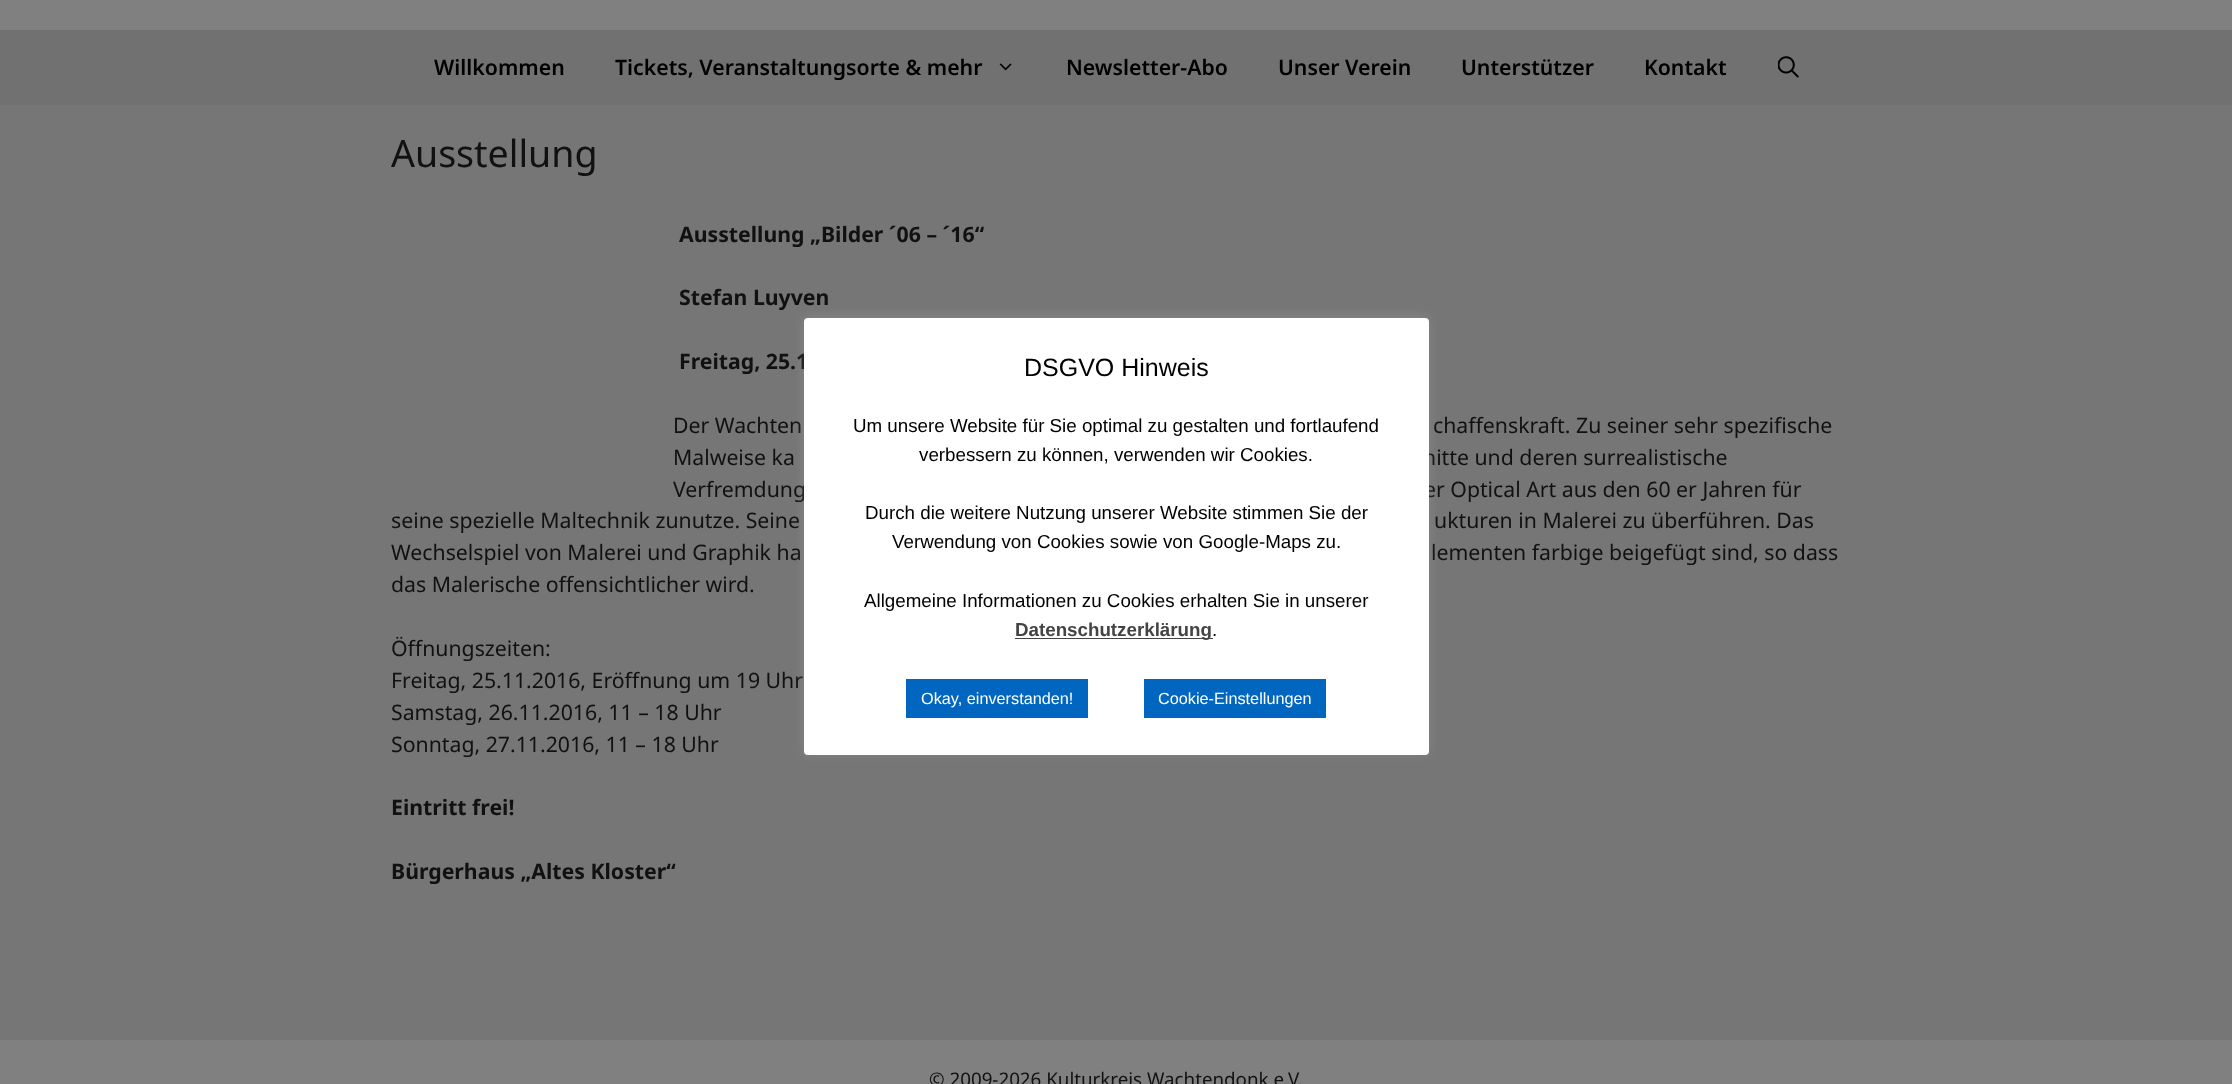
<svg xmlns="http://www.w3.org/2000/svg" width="2232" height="1084">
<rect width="100%" height="100%" fill="#767676"/>
<rect width="2232" height="30" fill="#808080"/>
<rect y="30" width="2232" height="75" fill="#727171"/>
<text x="434" y="75" style="font-family:Noto Sans;font-size:21.25px;font-weight:600;fill:#000">Willkommen</text>
<text x="615" y="75" style="font-family:Noto Sans;font-size:21.25px;font-weight:600;fill:#000">Tickets, Veranstaltungsorte &amp; mehr</text>
<image x="999" y="63" width="13" height="8" href="media/1.png"/>
<text x="1066" y="75" style="font-family:Noto Sans;font-size:21.25px;font-weight:600;fill:#000">Newsletter-Abo</text>
<text x="1278" y="75" style="font-family:Noto Sans;font-size:21.25px;font-weight:600;fill:#000">Unser Verein</text>
<text x="1461" y="75" style="font-family:Noto Sans;font-size:21.25px;font-weight:600;fill:#000">Unterstützer</text>
<text x="1644" y="75" style="font-family:Noto Sans;font-size:21.25px;font-weight:600;fill:#000">Kontakt</text>
<image x="1778" y="56" width="21" height="22" href="media/2.png"/>
<text x="391" y="167" style="font-family:Noto Sans;font-size:37.5px;fill:#111">Ausstellung</text>
<text x="679" y="242" style="font-family:Noto Sans;font-size:21.25px;font-weight:bold;fill:#111">Ausstellung „Bilder ´06 – ´16“</text>
<text x="679" y="305" style="font-family:Noto Sans;font-size:21.25px;font-weight:bold;fill:#111">Stefan Luyven</text>
<text x="679" y="369" style="font-family:Noto Sans;font-size:21.25px;font-weight:bold;fill:#111">Freitag, 25.1</text>
<text x="673" y="433" style="font-family:Noto Sans;font-size:21.25px;fill:#111">Der Wachten</text>
<text x="1433" y="433" style="font-family:Noto Sans;font-size:21.25px;fill:#111">chaffenskraft. Zu seiner sehr spezifische</text>
<text x="673" y="465" style="font-family:Noto Sans;font-size:21.25px;fill:#111">Malweise ka</text>
<text x="1423" y="465" style="font-family:Noto Sans;font-size:21.25px;fill:#111">nitte und deren surrealistische</text>
<text x="673" y="497" style="font-family:Noto Sans;font-size:21.25px;fill:#111">Verfremdung</text>
<text x="1424" y="497" style="font-family:Noto Sans;font-size:21.25px;fill:#111">er Optical Art aus den 60 er Jahren für</text>
<text x="391" y="528" style="font-family:Noto Sans;font-size:21.25px;fill:#111">seine spezielle Maltechnik zunutze. Seine</text>
<text x="1434" y="528" style="font-family:Noto Sans;font-size:21.25px;fill:#111">ukturen in Malerei zu überführen. Das</text>
<text x="391" y="560" style="font-family:Noto Sans;font-size:21.25px;fill:#111">Wechselspiel von Malerei und Graphik ha</text>
<text x="1431" y="560" style="font-family:Noto Sans;font-size:21.25px;fill:#111">lementen farbige beigefügt sind, so dass</text>
<text x="391" y="592" style="font-family:Noto Sans;font-size:21.25px;fill:#111">das Malerische offensichtlicher wird.</text>
<text x="391" y="656" style="font-family:Noto Sans;font-size:21.25px;fill:#111">Öffnungszeiten:</text>
<text x="391" y="688" style="font-family:Noto Sans;font-size:21.25px;fill:#111">Freitag, 25.11.2016, Eröffnung um 19 Uhr</text>
<text x="391" y="720" style="font-family:Noto Sans;font-size:21.25px;fill:#111">Samstag, 26.11.2016, 11 – 18 Uhr</text>
<text x="391" y="752" style="font-family:Noto Sans;font-size:21.25px;fill:#111">Sonntag, 27.11.2016, 11 – 18 Uhr</text>
<text x="391" y="815" style="font-family:Noto Sans;font-size:21.25px;font-weight:bold;fill:#111">Eintritt frei!</text>
<text x="391" y="879" style="font-family:Noto Sans;font-size:21.25px;font-weight:bold;fill:#111">Bürgerhaus „Altes Kloster“</text>
<rect x="804" y="316" width="625" height="438" rx="4" fill="#acabab4d" filter="blur(6px)"/>
<rect x="804" y="318" width="625" height="437" rx="4" fill="#fff"/>
<text x="1024" y="376" style="font-family:Liberation Sans;font-size:25px;fill:#000">DSGVO Hinweis</text>
<text x="853" y="432" style="font-family:Liberation Sans;font-size:18.75px;fill:#000">Um unsere Website für Sie optimal zu gestalten und fortlaufend</text>
<text x="919" y="461" style="font-family:Liberation Sans;font-size:18.75px;fill:#000">verbessern zu können, verwenden wir Cookies.</text>
<text x="865" y="519" style="font-family:Liberation Sans;font-size:18.75px;fill:#000">Durch die weitere Nutzung unserer Website stimmen Sie der</text>
<text x="892" y="548" style="font-family:Liberation Sans;font-size:18.75px;fill:#000">Verwendung von Cookies sowie von Google-Maps zu.</text>
<text x="864" y="607" style="font-family:Liberation Sans;font-size:18.75px;fill:#000">Allgemeine Informationen zu Cookies erhalten Sie in unserer</text>
<rect x="1015" y="638" width="198" height="1" fill="#444"/>
<text x="1015" y="636" style="font-family:Liberation Sans;font-size:18.75px;font-weight:bold;fill:#444">Datenschutzerklärung</text>
<text x="1212" y="636" style="font-family:Liberation Sans;font-size:18.75px;fill:#000">.</text>
<rect x="906" y="679" width="182" height="39" fill="#0066bf"/>
<text x="921" y="704" style="font-family:Liberation Sans;font-size:16.25px;fill:#fff">Okay, einverstanden!</text>
<rect x="1144" y="679" width="182" height="39" fill="#0066bf"/>
<text x="1158" y="704" style="font-family:Liberation Sans;font-size:16.25px;fill:#fff">Cookie-Einstellungen</text>
<rect y="1040" width="2232" height="44" fill="#808080"/>
<text x="929" y="1086" style="font-family:Noto Sans;font-size:18.75px;fill:#111">© 2009-2026 Kulturkreis Wachtendonk e.V.</text>
</svg>
